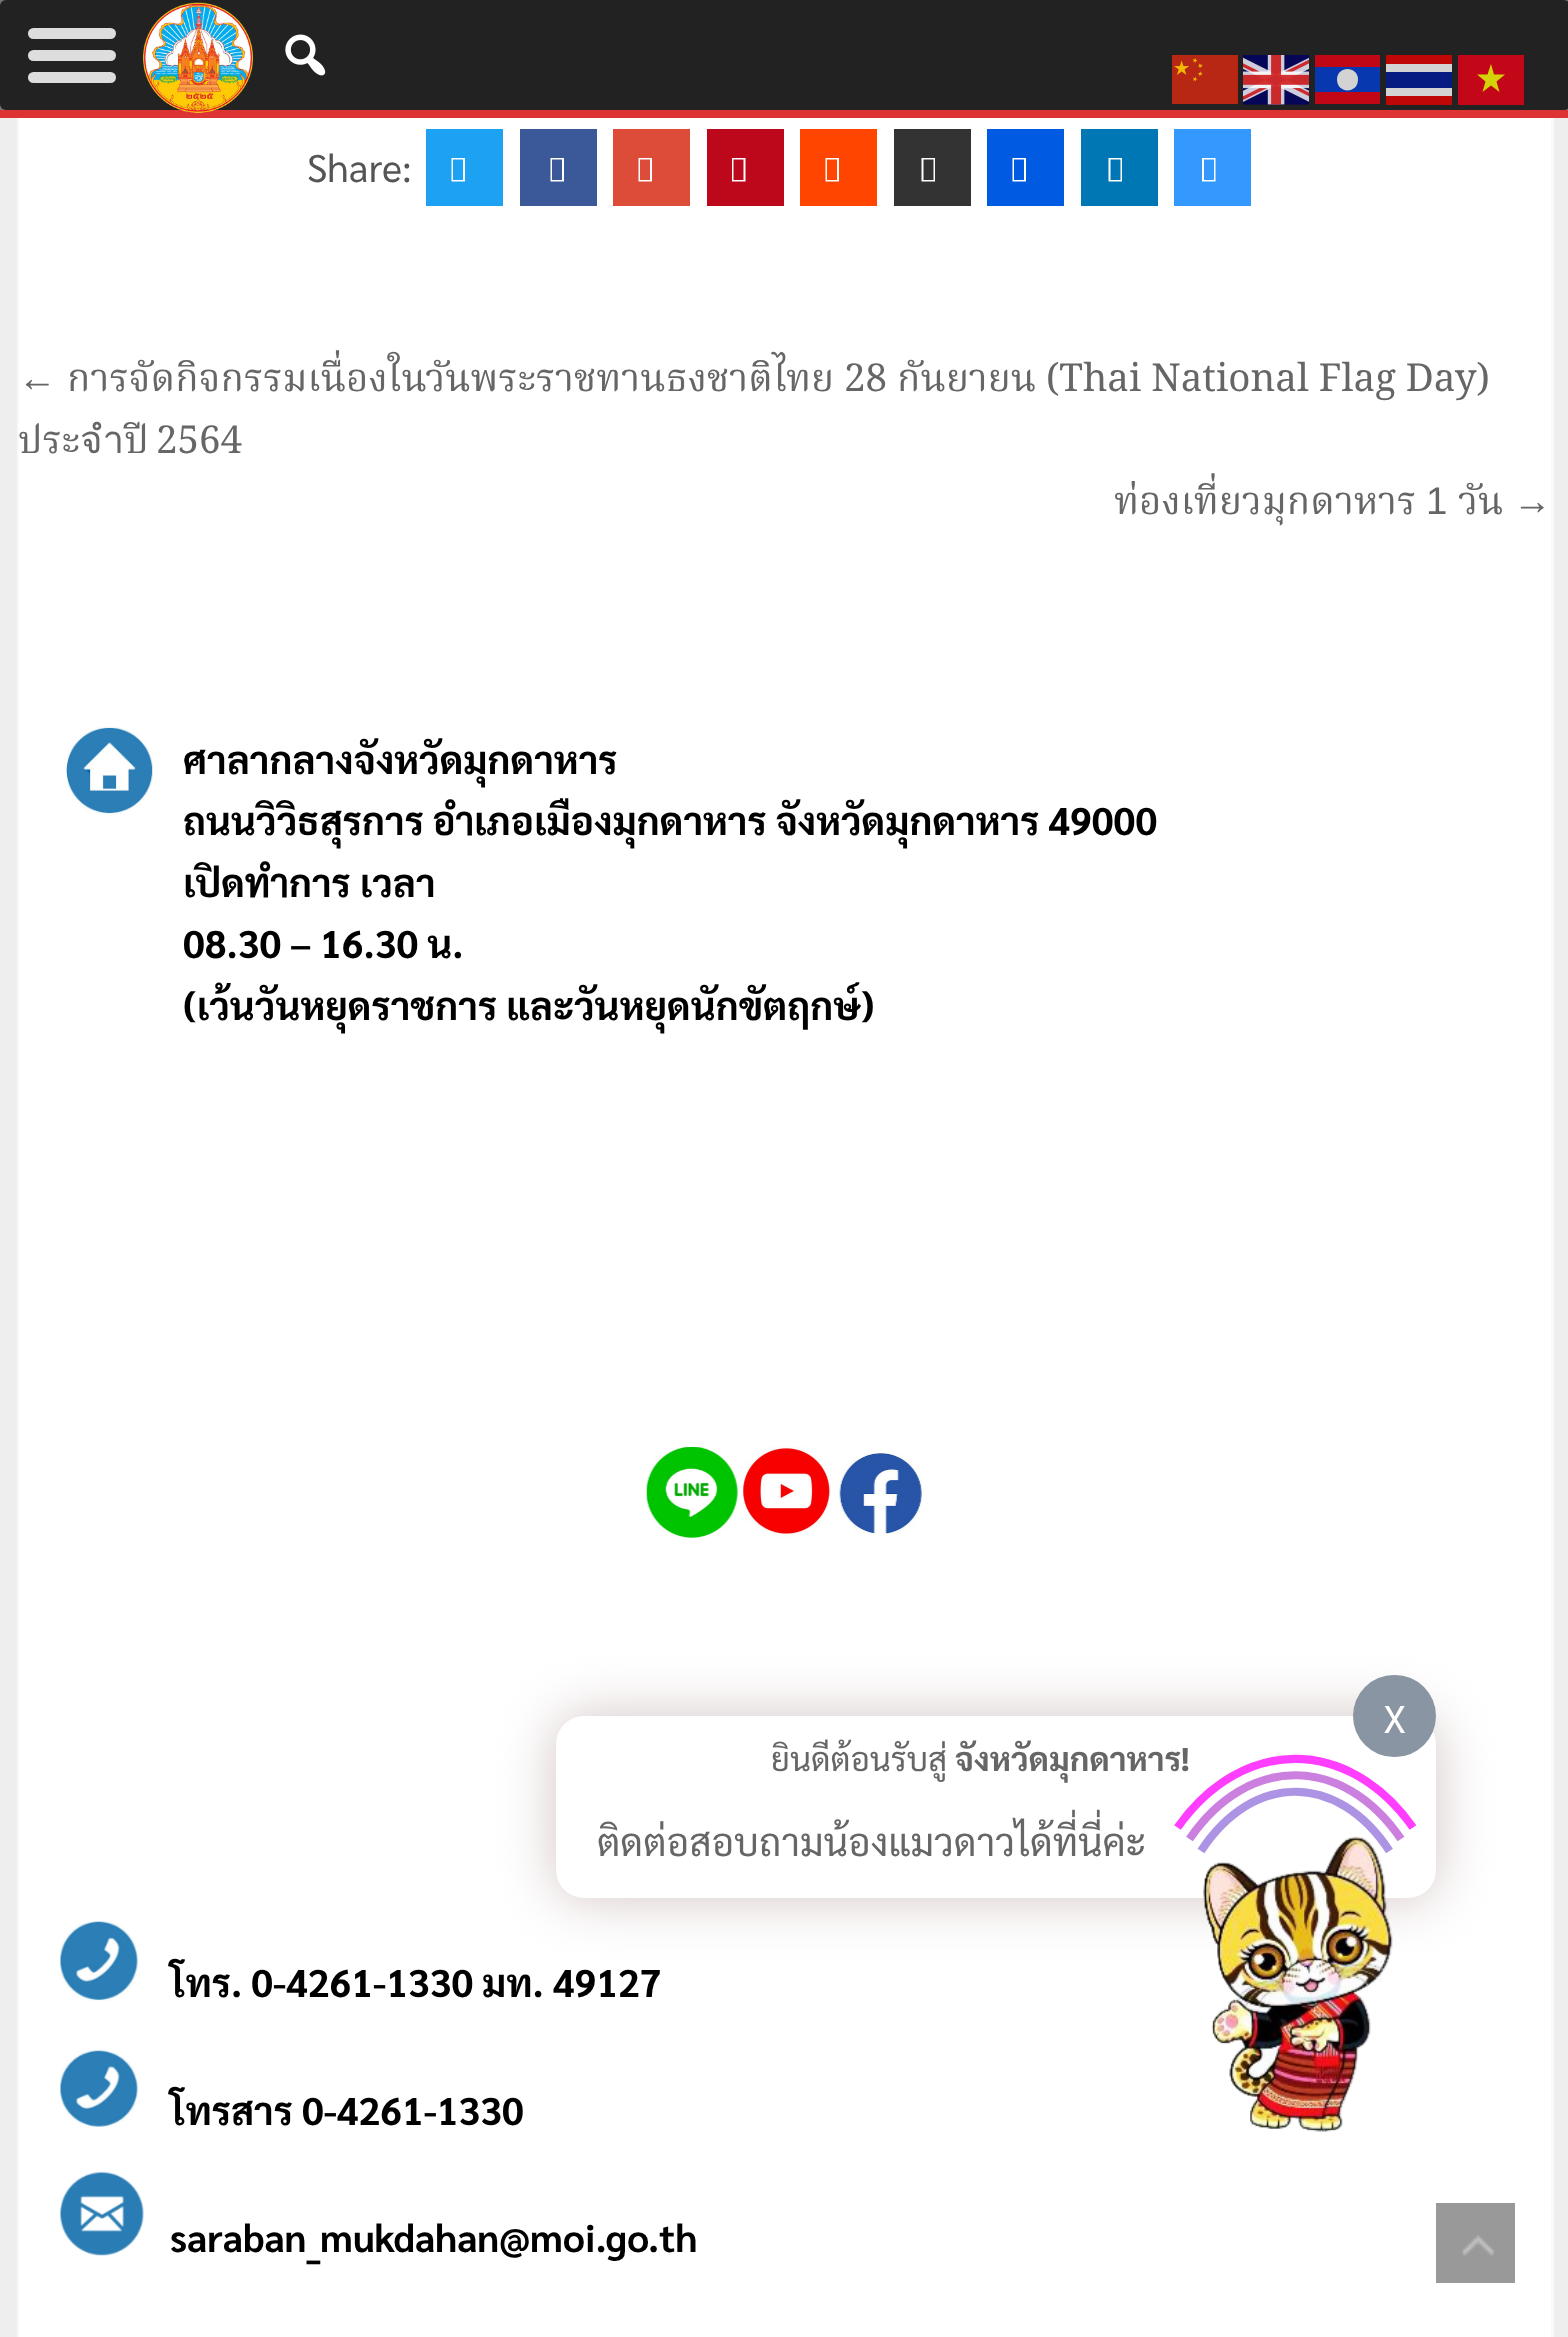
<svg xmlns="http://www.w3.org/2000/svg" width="1568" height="2337">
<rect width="100%" height="100%" fill="#eee"/>
<rect x="18.5" y="-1.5" width="1534" height="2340" fill="none" stroke="#f9f9f9" stroke-width="3"/>
<rect width="1568" height="110" fill="#757575"/>
<rect width="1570" height="110" rx="6" fill="#222"/>
<image x="1172" y="55" width="66" height="49" href="media/1.png"/>
<image x="1243" y="55" width="66" height="50" href="media/2.png"/>
<rect x="1315" y="55" width="65" height="49" fill="#c10715"/>
<rect x="1386" y="64" width="66" height="32" fill="#d3d3d3"/>
<rect x="1386" y="72" width="66" height="16" fill="#071c82"/>
<path d="M1386 55h66v9h-66zm0 41h66v9h-66z" fill="#c00707" fill-rule="evenodd"/>
<rect x="1458" y="55" width="66" height="50" fill="#c40718"/>
<rect x="1315" y="67" width="65" height="25" fill="#0738af"/>
<path d="M1499.5 92l-8.5-6.5l-8.5 6.5l3-10.5l-8.5-7h10.5l3.5-10.5l3 10.5h11l-8.5 7z" fill="#d3d307" fill-rule="evenodd"/>
<path d="M1358 79.5c0 14.5-21 14.5-21 0c0-14 21-14 21 0z" fill="#d3d3d3" fill-rule="evenodd"/>
<rect y="110" width="1568" height="8" fill="#d33"/>
<rect x="28" y="28" width="88" height="11" rx="5.5" fill="#ddd"/>
<rect x="28" y="50" width="88" height="11" rx="5.5" fill="#ddd"/>
<rect x="28" y="72" width="88" height="11" rx="5.5" fill="#ddd"/>
<image x="143" y="2" width="110" height="111" href="media/3.png"/>
<image x="285" y="34" width="41" height="42" href="media/4.png"/>
<rect x="19" y="118" width="1532" height="2219" fill="#fff"/>
<text x="307" y="182" style="font-family:Sarabun;font-size:38.5px;fill:#555">Share:</text>
<rect x="426" y="129" width="77" height="77" fill="#1da1f2"/>
<path d="M451.5 181.5v-23.5h13.5v23.5zm1.5-1.5h10v-20.5h-10z" fill="#fff"/>
<rect x="520" y="129" width="77" height="77" fill="#3b5998"/>
<path d="M550.5 181.5v-23.5h13.5v23.5zm1.5-1.5h10v-20.5h-10z" fill="#fff"/>
<rect x="613" y="129" width="77" height="77" fill="#dd4b39"/>
<path d="M638.5 181.5v-23.5h13.5v23.5zm1.5-1.5h10v-20.5h-10z" fill="#fff"/>
<rect x="707" y="129" width="77" height="77" fill="#bd081c"/>
<path d="M732 181.5v-23.5h13.5v23.5zm1.5-1.5h10v-20.5h-10z" fill="#fff"/>
<rect x="800" y="129" width="77" height="77" fill="#ff4500"/>
<path d="M825.5 181.5v-23.5h13.5v23.5zm1.5-1.5h10v-20.5h-10z" fill="#fff"/>
<rect x="894" y="129" width="77" height="77" fill="#333"/>
<path d="M921.5 181.5v-23.5h13.5v23.5zm2-1.5h10v-20.5h-10z" fill="#fff"/>
<rect x="987" y="129" width="77" height="77" fill="#005be2"/>
<path d="M1012.5 181.5v-23.5h13.5v23.5zm1.5-1.5h10v-20.5h-10z" fill="#fff"/>
<rect x="1081" y="129" width="77" height="77" fill="#0077b5"/>
<path d="M1108.5 181.5v-23.5h13.5v23.5zm2-1.5h10v-20.5h-10z" fill="#fff"/>
<rect x="1174" y="129" width="77" height="77" fill="#39f"/>
<path d="M1202 181.5v-23.5h13.5v23.5zm2-1.5h10v-20.5h-10z" fill="#fff"/>
<text x="18" y="391" style="font-family:Liberation Sans;font-size:38.5px;fill:#666">←</text>
<text x="67" y="391" style="font-family:Noto Serif Thai;font-size:38.5px;fill:#666">การจัดกิจกรรมเนื่องในวันพระราชทานธงชาติไทย</text>
<text x="844" y="391" style="font-family:Noto Serif;font-size:38.5px;fill:#666">28</text>
<text x="897" y="391" style="font-family:Noto Serif Thai;font-size:38.5px;fill:#666">กันยายน</text>
<text x="1046" y="391" style="font-family:Noto Serif;font-size:38.5px;fill:#666">(Thai National Flag Day)</text>
<text x="18" y="453" style="font-family:Noto Serif Thai;font-size:38.5px;fill:#666">ประจำปี</text>
<text x="156" y="453" style="font-family:Noto Serif;font-size:38.5px;fill:#666">2564</text>
<text x="1114" y="514" style="font-family:Noto Serif Thai;font-size:38.5px;fill:#666">ท่องเที่ยวมุกดาหาร</text>
<text x="1426" y="514" style="font-family:Liberation Sans;font-size:38.5px;fill:#666">1</text>
<text x="1458" y="514" style="font-family:Noto Serif Thai;font-size:38.5px;fill:#666">วัน</text>
<text x="1513" y="514" style="font-family:Liberation Sans;font-size:38.5px;fill:#666">→</text>
<image x="64" y="726" width="89" height="89" href="media/5.png"/>
<text x="183" y="774" style="font-family:Sarabun;font-size:38.5px;font-weight:bold;fill:#000">ศาลากลางจังหวัดมุกดาหาร</text>
<text x="183" y="835" style="font-family:Sarabun;font-size:38.5px;font-weight:bold;fill:#000">ถนนวิวิธสุรการ อำเภอเมืองมุกดาหาร จังหวัดมุกดาหาร 49000</text>
<text x="183" y="897" style="font-family:Sarabun;font-size:38.5px;font-weight:bold;fill:#000">เปิดทำการ เวลา</text>
<text x="183" y="958" style="font-family:Sarabun;font-size:38.5px;font-weight:bold;fill:#000">08.30 – 16.30 น.</text>
<text x="183" y="1020" style="font-family:Sarabun;font-size:38.5px;font-weight:bold;fill:#000">(เว้นวันหยุดราชการ และวันหยุดนักขัตฤกษ์)</text>
<image x="646" y="1447" width="92" height="91" href="media/6.png"/>
<image x="743" y="1446" width="88" height="91" href="media/7.png"/>
<image x="839" y="1453" width="83" height="81" href="media/8.png"/>
<image x="60" y="1921" width="78" height="80" href="media/9.png"/>
<text x="170" y="1997" style="font-family:Sarabun;font-size:38.5px;font-weight:bold;fill:#000">โทร. 0-4261-1330 มท. 49127</text>
<image x="60" y="2050" width="78" height="77" href="media/10.png"/>
<text x="170" y="2125" style="font-family:Sarabun;font-size:38.5px;font-weight:bold;fill:#000">โทรสาร 0-4261-1330</text>
<image x="60" y="2171" width="84" height="85" href="media/11.png"/>
<text x="170" y="2252" style="font-family:Sarabun;font-size:38.5px;font-weight:bold;fill:#000">saraban_mukdahan@moi.go.th</text>
<rect x="556" y="1716" width="880" height="182" rx="28" fill="#d3c4c4" filter="blur(27.5px)"/>
<rect x="556" y="1716" width="880" height="182" rx="28" fill="#fff"/>
<rect x="1353" y="1675" width="83" height="82" rx="41" fill="#8a95a3"/>
<text x="1383" y="1733" style="font-family:Sarabun;font-size:38.5px;fill:#fff">X</text>
<text x="771" y="1771" style="font-family:Sarabun;font-size:33px;fill:#666">ยินดีต้อนรับสู่</text>
<text x="955" y="1771" style="font-family:Sarabun;font-size:33px;font-weight:bold;fill:#666">จังหวัดมุกดาหาร!</text>
<text x="597" y="1856" style="font-family:Sarabun;font-size:38.5px;fill:#666">ติดต่อสอบถามน้องแมวดาวได้ที่นี่ค่ะ</text>
<image x="1203" y="1836" width="190" height="296" href="media/12.png"/>
<path d="M1201 1851c52-79 136.5-79 188.5 0" fill="none" stroke="#ad93e4" stroke-width="8.2"/>
<path d="M1189.5 1839c58-85 153.5-85 211.5 0" fill="none" stroke="#cb7fde" stroke-width="8.2"/>
<path d="M1177.5 1827.5c65-91.5 170.5-91.5 235.5 0" fill="none" stroke="#ff3eff" stroke-width="8.2"/>
<rect x="1436" y="2203" width="79" height="80" fill="#999"/>
<image x="1462" y="2235" width="33" height="21" href="media/13.png"/>
</svg>
